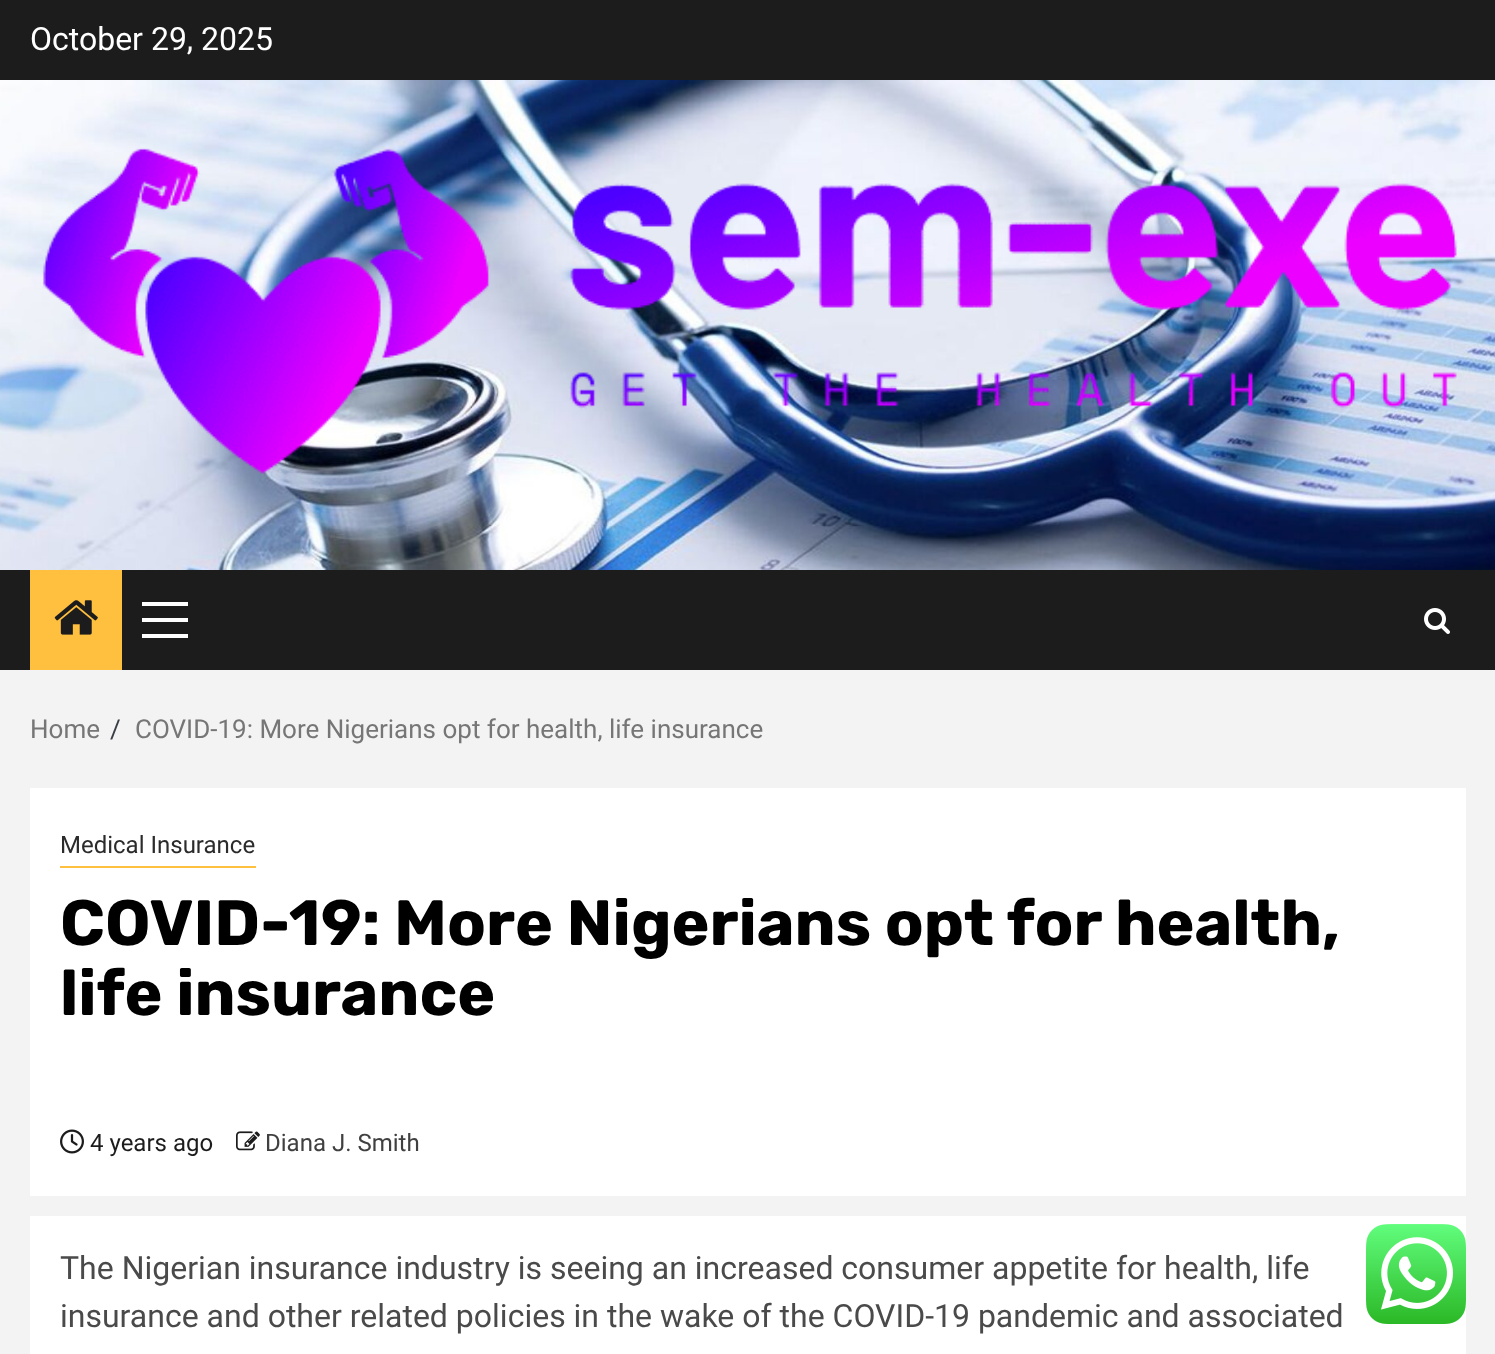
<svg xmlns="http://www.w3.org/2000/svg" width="1495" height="1354">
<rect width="100%" height="100%" fill="#f3f3f3"/>
<rect width="1495" height="80" fill="#1c1c1c"/>
<text x="30" y="50" style="font-family:Roboto;font-size:32px;fill:#fff">October 29, 2025</text>
<image x="0" y="80" width="1495" height="490" href="media/1.png"/>
<image x="42" y="148" width="1416" height="326" href="media/2.png"/>
<rect y="570" width="1495" height="100" fill="#1c1c1c"/>
<rect x="30" y="570" width="92" height="100" fill="#ffbf3f"/>
<image x="54" y="600" width="44" height="35" href="media/3.png"/>
<rect x="142" y="618" width="46" height="4" fill="#fff"/>
<rect x="142" y="602" width="46" height="4" fill="#fff"/>
<rect x="142" y="634" width="46" height="4" fill="#fff"/>
<image x="1424" y="608" width="26" height="26" href="media/4.png"/>
<text x="30" y="738" style="font-family:Roboto;font-size:26px;fill:#767676">Home</text>
<text x="110" y="738" style="font-family:Roboto;font-size:26px;fill:#393e46">/</text>
<text x="135" y="738" style="font-family:Roboto;font-size:26px;fill:#767676">COVID-19: More Nigerians opt for health, life insurance</text>
<rect x="30" y="788" width="1436" height="408" fill="#fff"/>
<rect x="60" y="866" width="196" height="2" fill="#ffbf3f"/>
<text x="60" y="853" style="font-family:Roboto;font-size:24px;fill:#2b2b2b">Medical Insurance</text>
<text x="60" y="945" style="font-family:Rubik;font-size:64px;font-weight:bold;fill:#000">COVID-19: More Nigerians opt for health,</text>
<text x="60" y="1015" style="font-family:Rubik;font-size:64px;font-weight:bold;fill:#000">life insurance</text>
<image x="60" y="1129" width="24" height="25" href="media/5.png"/>
<text x="90" y="1151" style="font-family:Roboto;font-size:24px;fill:#1c1c1c">4 years ago</text>
<image x="236" y="1131" width="24" height="20" href="media/6.png"/>
<text x="265" y="1151" style="font-family:Roboto;font-size:24px;fill:#404040">Diana J. Smith</text>
<rect x="30" y="1216" width="1436" height="138" fill="#fff"/>
<text x="60" y="1279" style="font-family:Roboto;font-size:32px;fill:#4a4a4a">The Nigerian insurance industry is seeing an increased consumer appetite for health, life</text>
<text x="60" y="1327" style="font-family:Roboto;font-size:32px;fill:#4a4a4a">insurance and other related policies in the wake of the COVID-19 pandemic and associated</text>
<image x="1366" y="1224" width="100" height="100" href="media/7.png"/>
</svg>
